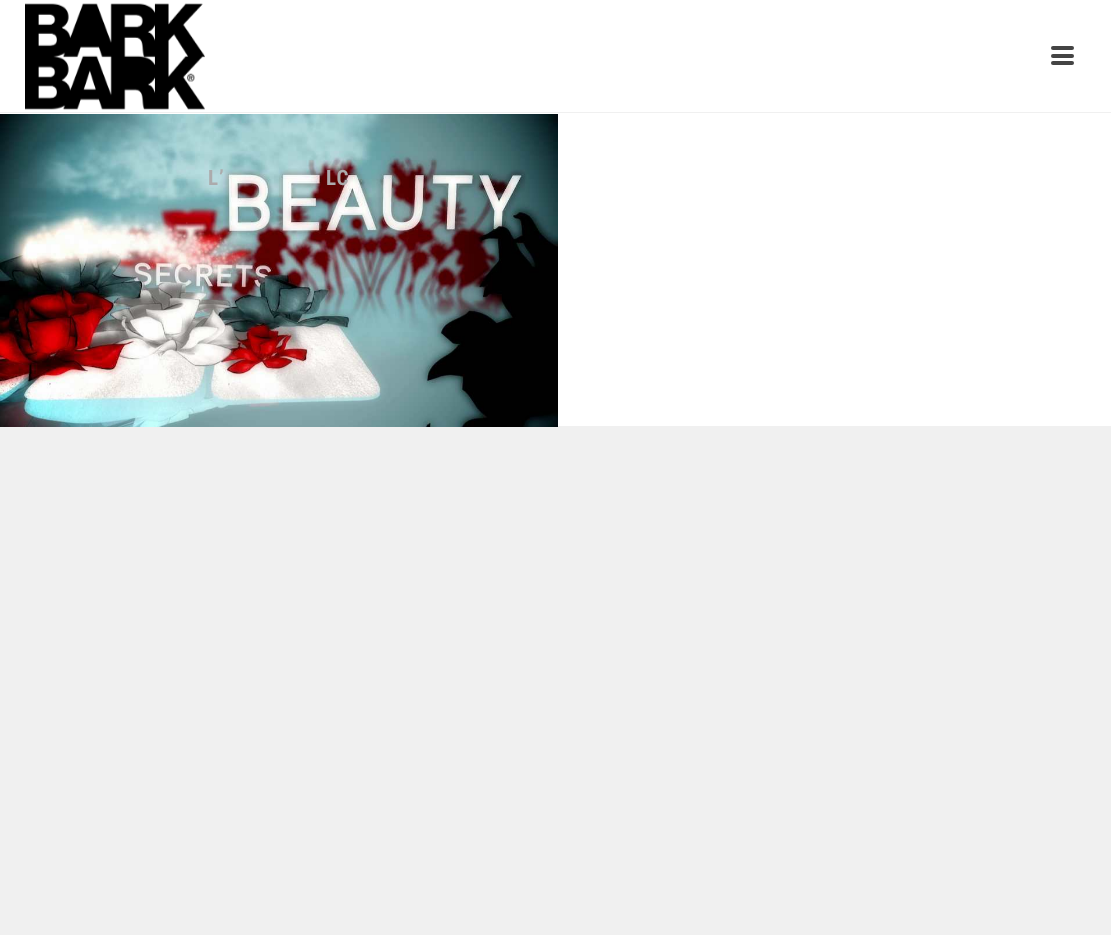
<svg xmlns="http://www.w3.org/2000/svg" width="1111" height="935">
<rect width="100%" height="100%" fill="#f0f0f0"/>
<rect width="1111" height="112" fill="#fff"/>
<image x="25" y="3" width="180" height="107" href="media/1.png"/>
<rect x="1051" y="46" width="23" height="4" rx="2" fill="#444"/>
<rect x="1051" y="54" width="23" height="4" rx="2" fill="#444"/>
<rect x="1051" y="61" width="23" height="4" rx="2" fill="#444"/>
<rect y="113" width="1111" height="313" fill="#fff"/>
<image x="0" y="114" width="558" height="313" href="media/2.png"/>
<text x="208" y="185" style="font-family:Roboto Condensed;font-size:21px;font-weight:bold;letter-spacing:1px;fill:#acabac">L’</text>
<text x="326" y="185" style="font-family:Roboto Condensed;font-size:21px;font-weight:bold;letter-spacing:1px;fill:#acabac">LC</text>
</svg>
